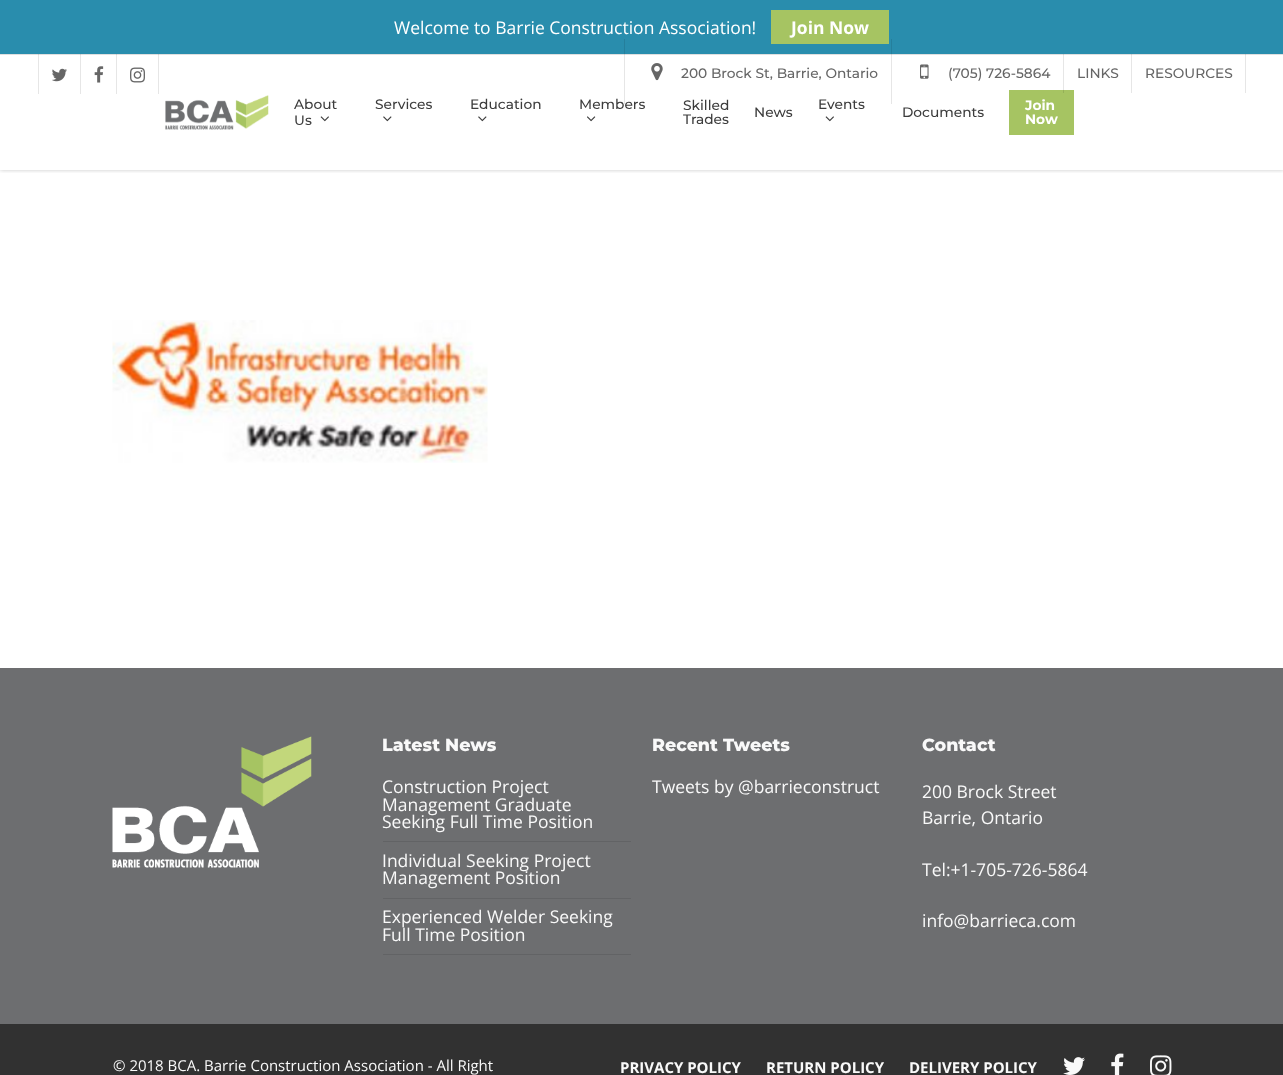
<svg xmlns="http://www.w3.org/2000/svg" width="1283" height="1075">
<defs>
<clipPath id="clip1"><rect x="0" y="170" width="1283" height="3"/></clipPath>
</defs>
<rect width="100%" height="100%" fill="#fff"/>
<rect x="116" y="54" width="1" height="40" fill="#e6e6e6"/>
<rect x="80" y="54" width="1" height="40" fill="#e6e6e6"/>
<rect x="38" y="54" width="1" height="40" fill="#e6e6e6"/>
<rect x="158" y="54" width="1" height="40" fill="#e6e6e6"/>
<rect x="1131" y="54" width="1" height="39" fill="#e6e6e6"/>
<rect x="1245" y="54" width="1" height="39" fill="#e6e6e6"/>
<rect x="1063" y="54" width="1" height="39" fill="#e6e6e6"/>
<rect x="891" y="55" width="1" height="49" fill="#e6e6e6"/>
<rect x="624" y="55" width="1" height="49" fill="#e6e6e6"/>
<g clip-path="url(#clip1)">
<rect width="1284" height="170" fill="#00000038" filter="blur(2px)"/>
</g>
<rect y="54" width="1283" height="1" fill="#dfdfdf"/>
<rect x="116" y="54" width="1" height="1" fill="#c9c9c9"/>
<rect x="80" y="54" width="1" height="1" fill="#c9c9c9"/>
<rect x="38" y="54" width="1" height="1" fill="#c9c9c9"/>
<rect x="158" y="54" width="1" height="1" fill="#c9c9c9"/>
<rect x="1131" y="54" width="1" height="1" fill="#c9c9c9"/>
<rect x="1245" y="54" width="1" height="1" fill="#c9c9c9"/>
<rect x="1063" y="54" width="1" height="1" fill="#c9c9c9"/>
<rect x="891" y="54" width="1" height="1" fill="#c9c9c9"/>
<rect x="624" y="54" width="1" height="1" fill="#c9c9c9"/>
<rect width="1283" height="54" fill="#298dad"/>
<rect x="891" y="39" width="1" height="15" fill="#257f9c"/>
<rect x="624" y="39" width="1" height="15" fill="#257f9c"/>
<text x="394" y="34" style="font-family:Open Sans;font-size:17.5px;fill:#fff">Welcome to Barrie Construction Association!</text>
<rect x="771" y="10" width="118" height="34" fill="#a6c462"/>
<text x="791" y="34" style="font-family:Open Sans;font-size:17.5px;font-weight:bold;fill:#fff">Join Now</text>
<image x="52" y="68" width="15" height="14" href="media/1.png"/>
<image x="94" y="66" width="10" height="17" href="media/2.png"/>
<image x="130" y="67" width="15" height="16" href="media/3.png"/>
<image x="651" y="63" width="12" height="18" href="media/4.png"/>
<text x="681" y="78" style="font-family:Montserrat;font-size:13.75px;font-weight:500;fill:#666">200 Brock St, Barrie, Ontario</text>
<image x="920" y="64" width="9" height="15" href="media/5.png"/>
<text x="948" y="78" style="font-family:Montserrat;font-size:13.75px;font-weight:500;fill:#666">(705) 726-5864</text>
<text x="1077" y="78" style="font-family:Montserrat;font-size:13.75px;font-weight:500;fill:#666">LINKS</text>
<text x="1145" y="78" style="font-family:Montserrat;font-size:13.75px;font-weight:500;fill:#666">RESOURCES</text>
<image x="165" y="95" width="104" height="35" href="media/6.png"/>
<text x="294" y="109" style="font-family:Montserrat;font-size:13.75px;font-weight:500;fill:#3c3c3c">About</text>
<text x="294" y="125" style="font-family:Montserrat;font-size:13.75px;font-weight:500;fill:#3c3c3c">Us</text>
<image x="320" y="116" width="9" height="6" href="media/7.png"/>
<text x="375" y="109" style="font-family:Montserrat;font-size:13.75px;font-weight:500;fill:#3c3c3c">Services</text>
<image x="383" y="116" width="9" height="6" href="media/8.png"/>
<text x="470" y="109" style="font-family:Montserrat;font-size:13.75px;font-weight:500;fill:#3c3c3c">Education</text>
<image x="478" y="116" width="9" height="6" href="media/8.png"/>
<text x="579" y="109" style="font-family:Montserrat;font-size:13.75px;font-weight:500;fill:#3c3c3c">Members</text>
<image x="587" y="116" width="9" height="6" href="media/9.png"/>
<text x="683" y="110" style="font-family:Montserrat;font-size:13.75px;font-weight:500;fill:#3c3c3c">Skilled</text>
<text x="683" y="124" style="font-family:Montserrat;font-size:13.75px;font-weight:500;fill:#3c3c3c">Trades</text>
<text x="754" y="117" style="font-family:Montserrat;font-size:13.75px;font-weight:500;fill:#3c3c3c">News</text>
<text x="818" y="109" style="font-family:Montserrat;font-size:13.75px;font-weight:500;fill:#3c3c3c">Events</text>
<image x="825" y="116" width="9" height="6" href="media/7.png"/>
<text x="902" y="117" style="font-family:Montserrat;font-size:13.75px;font-weight:500;fill:#3c3c3c">Documents</text>
<rect x="1009" y="90" width="65" height="45" fill="#a6c462"/>
<rect x="1063" y="90" width="1" height="3" fill="#95b058"/>
<text x="1025" y="110" style="font-family:Montserrat;font-size:13.75px;font-weight:bold;fill:#fff">Join</text>
<text x="1025" y="124" style="font-family:Montserrat;font-size:13.75px;font-weight:bold;fill:#fff">Now</text>
<image x="112" y="320" width="376" height="143" href="media/10.png"/>
<rect y="668" width="1283" height="356" fill="#6d6e70"/>
<image x="112" y="736" width="200" height="132" href="media/11.png"/>
<text x="382" y="751" style="font-family:Montserrat;font-size:17.5px;font-weight:800;fill:#f9f9f9">Latest News</text>
<rect x="383" y="841" width="248" height="1" fill="#626365"/>
<text x="382" y="793" style="font-family:Open Sans;font-size:17.5px;fill:#f9f9f9">Construction Project</text>
<text x="382" y="811" style="font-family:Open Sans;font-size:17.5px;fill:#f9f9f9">Management Graduate</text>
<text x="382" y="828" style="font-family:Open Sans;font-size:17.5px;fill:#f9f9f9">Seeking Full Time Position</text>
<rect x="383" y="898" width="248" height="1" fill="#626365"/>
<text x="382" y="867" style="font-family:Open Sans;font-size:17.5px;fill:#f9f9f9">Individual Seeking Project</text>
<text x="382" y="884" style="font-family:Open Sans;font-size:17.5px;fill:#f9f9f9">Management Position</text>
<rect x="383" y="954" width="248" height="1" fill="#626365"/>
<text x="382" y="923" style="font-family:Open Sans;font-size:17.5px;fill:#f9f9f9">Experienced Welder Seeking</text>
<text x="382" y="941" style="font-family:Open Sans;font-size:17.5px;fill:#f9f9f9">Full Time Position</text>
<text x="652" y="751" style="font-family:Montserrat;font-size:17.5px;font-weight:800;fill:#f9f9f9">Recent Tweets</text>
<text x="652" y="793" style="font-family:Open Sans;font-size:17.5px;fill:#f9f9f9">Tweets by @barrieconstruct</text>
<text x="922" y="751" style="font-family:Montserrat;font-size:17.5px;font-weight:800;fill:#f9f9f9">Contact</text>
<text x="922" y="798" style="font-family:Open Sans;font-size:17.5px;fill:#f9f9f9">200 Brock Street</text>
<text x="922" y="824" style="font-family:Open Sans;font-size:17.5px;fill:#f9f9f9">Barrie, Ontario</text>
<text x="922" y="876" style="font-family:Open Sans;font-size:17.5px;fill:#f9f9f9">Tel:+1-705-726-5864</text>
<text x="922" y="927" style="font-family:Open Sans;font-size:17.5px;fill:#f9f9f9">info@barrieca.com</text>
<rect y="1024" width="1283" height="51" fill="#313131"/>
<text x="113" y="1071" style="font-family:Open Sans;font-size:15px;fill:#f9f9f9">© 2018 BCA. Barrie Construction Association - All Right</text>
<text x="620" y="1073" style="font-family:Open Sans;font-size:15px;font-weight:bold;fill:#f9f9f9">PRIVACY POLICY</text>
<text x="766" y="1073" style="font-family:Open Sans;font-size:15px;font-weight:bold;fill:#f9f9f9">RETURN POLICY</text>
<text x="909" y="1073" style="font-family:Open Sans;font-size:15px;font-weight:bold;fill:#f9f9f9">DELIVERY POLICY</text>
<image x="1063" y="1057" width="22" height="18" href="media/12.png"/>
<image x="1111" y="1053" width="13" height="22" href="media/13.png"/>
<image x="1150" y="1055" width="22" height="20" href="media/14.png"/>
</svg>
